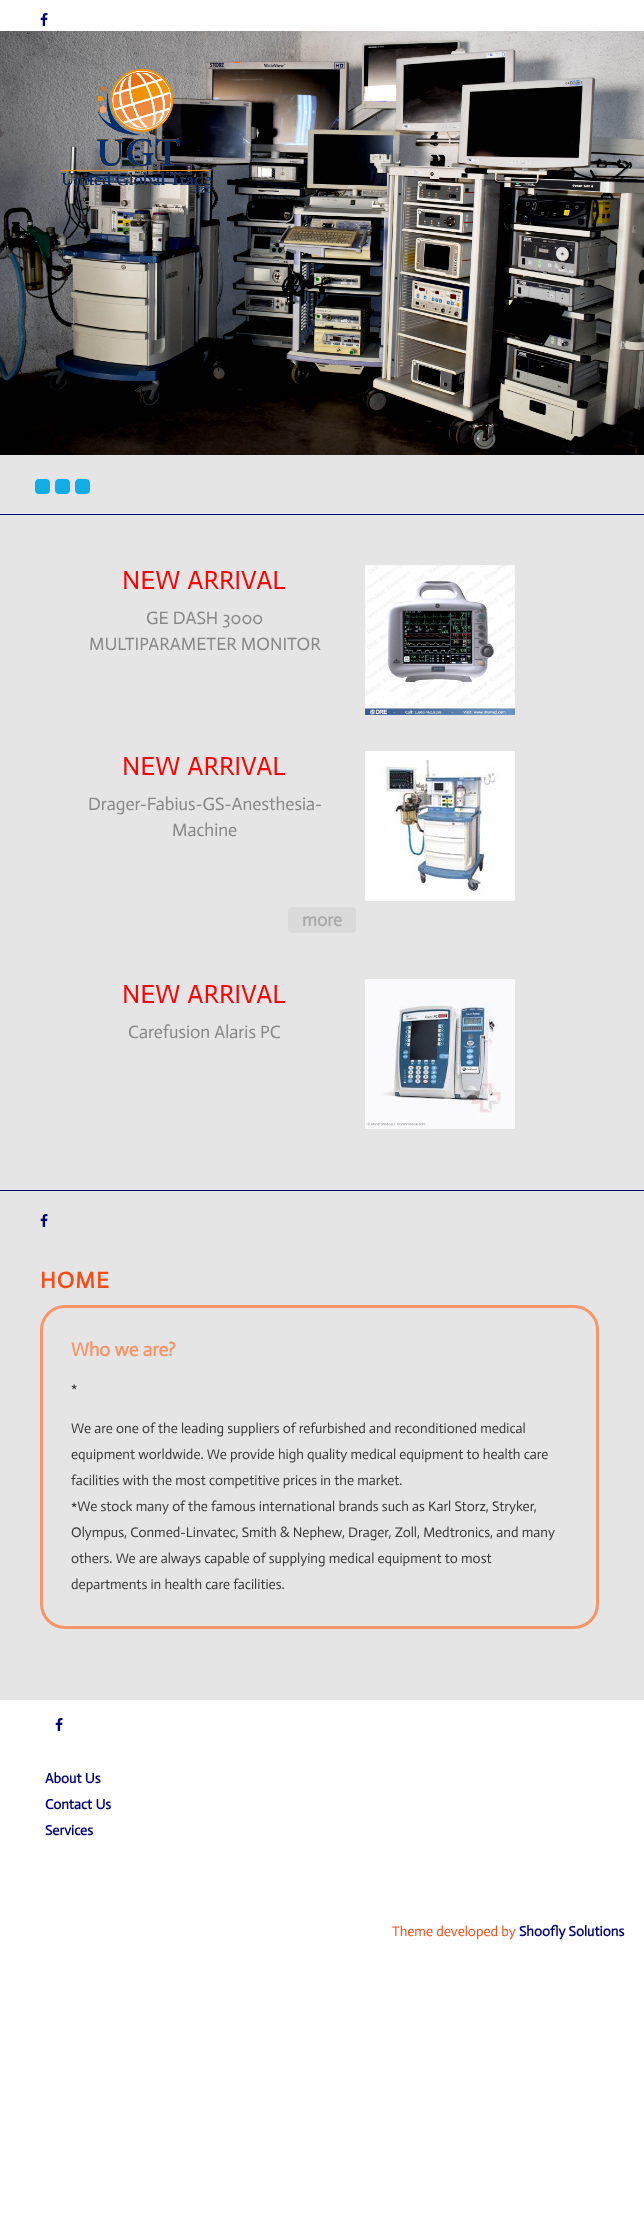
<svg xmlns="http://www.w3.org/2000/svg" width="644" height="2215">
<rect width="100%" height="100%" fill="#fff"/>
<image x="40" y="13" width="8" height="13" href="media/1.png"/>
<image x="0" y="31" width="644" height="424" href="media/2.png"/>
<image x="60" y="69" width="152" height="124" href="media/4.png"/>
<image x="60" y="69" width="152" height="124" href="media/3.png"/>
<rect y="455" width="644" height="1245" fill="#e5e5e5"/>
<image x="35" y="479" width="55" height="15" href="media/5.png"/>
<rect y="514" width="644" height="1" fill="#000276"/>
<text x="122" y="589" word-spacing="1" style="font-family:Actor;font-size:26.5px;fill:#f00">NEW ARRIVAL</text>
<text x="146" y="624" style="font-family:Actor;font-size:18px;fill:#888">GE DASH 3000</text>
<text x="89" y="650" style="font-family:Actor;font-size:18px;fill:#888">MULTIPARAMETER MONITOR</text>
<image x="365" y="565" width="150" height="150" href="media/6.png"/>
<text x="122" y="775" word-spacing="1" style="font-family:Actor;font-size:26.5px;fill:#f00">NEW ARRIVAL</text>
<text x="88" y="810" style="font-family:Actor;font-size:18px;fill:#888">Drager-Fabius-GS-Anesthesia-</text>
<text x="172" y="836" style="font-family:Actor;font-size:18px;fill:#888">Machine</text>
<image x="365" y="751" width="150" height="150" href="media/7.png"/>
<rect x="288" y="907" width="68" height="26" rx="4" fill="#dadada"/>
<text x="302" y="926" style="font-family:Actor;font-size:18px;font-weight:bold;fill:#aaa">more</text>
<text x="122" y="1003" word-spacing="1" style="font-family:Actor;font-size:26.5px;fill:#f00">NEW ARRIVAL</text>
<text x="128" y="1038" style="font-family:Actor;font-size:18px;fill:#888">Carefusion Alaris PC</text>
<image x="365" y="979" width="150" height="150" href="media/8.png"/>
<rect y="1190" width="644" height="1" fill="#000276"/>
<image x="40" y="1214" width="8" height="13" href="media/9.png"/>
<text x="40" y="1288" style="font-family:Actor;font-size:23px;font-weight:bold;letter-spacing:1px;fill:#f64d19">HOME</text>
<rect x="41.5" y="1306.5" width="556" height="321" rx="23.5" fill="none" stroke="#f79468" stroke-width="3"/>
<text x="71" y="1356" style="font-family:Actor;font-size:19px;font-weight:bold;fill:#f79468">Who we are?</text>
<text x="71" y="1393" style="font-family:Actor;font-size:14px;fill:#3a3a3a">*</text>
<text x="71" y="1433" style="font-family:Actor;font-size:14px;fill:#3a3a3a">We are one of the leading suppliers of refurbished and reconditioned medical</text>
<text x="71" y="1459" style="font-family:Actor;font-size:14px;fill:#3a3a3a">equipment worldwide. We provide high quality medical equipment to health care</text>
<text x="71" y="1485" style="font-family:Actor;font-size:14px;fill:#3a3a3a">facilities with the most competitive prices in the market.</text>
<text x="71" y="1511" style="font-family:Actor;font-size:14px;fill:#3a3a3a">*We stock many of the famous international brands such as Karl Storz, Stryker,</text>
<text x="71" y="1537" style="font-family:Actor;font-size:14px;fill:#3a3a3a">Olympus, Conmed-Linvatec, Smith &amp; Nephew, Drager, Zoll, Medtronics, and many</text>
<text x="71" y="1563" style="font-family:Actor;font-size:14px;fill:#3a3a3a">others. We are always capable of supplying medical equipment to most</text>
<text x="71" y="1589" style="font-family:Actor;font-size:14px;fill:#3a3a3a">departments in health care facilities.</text>
<image x="55" y="1718" width="8" height="13" href="media/1.png"/>
<text x="45" y="1783" style="font-family:Actor;font-size:14px;font-weight:bold;fill:#000276">About Us</text>
<text x="45" y="1809" style="font-family:Actor;font-size:14px;font-weight:bold;fill:#000276">Contact Us</text>
<text x="45" y="1835" style="font-family:Actor;font-size:14px;font-weight:bold;fill:#000276">Services</text>
<text x="392" y="1936" style="font-family:Actor;font-size:14px;fill:#f64d19">Theme developed by</text>
<text x="519" y="1936" style="font-family:Actor;font-size:14px;font-weight:bold;fill:#000276">Shoofly Solutions</text>
</svg>
